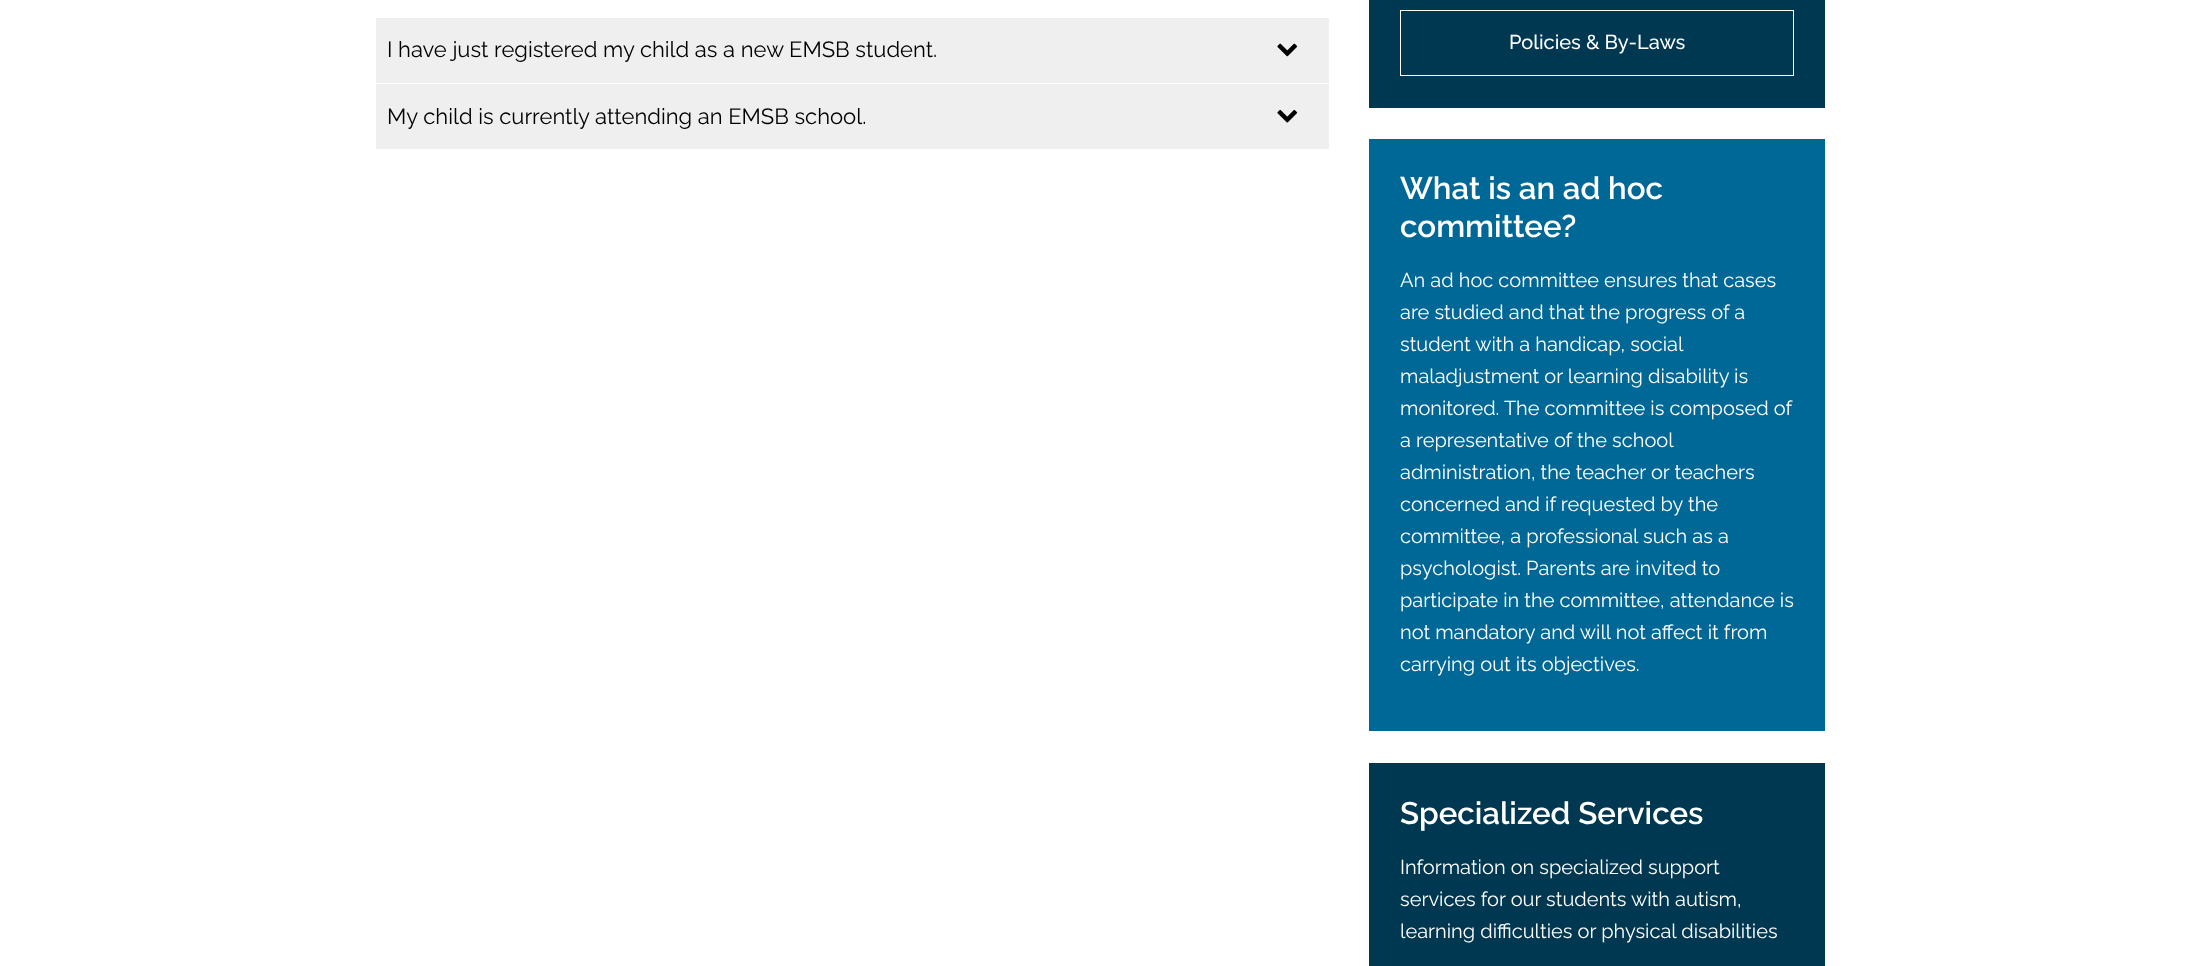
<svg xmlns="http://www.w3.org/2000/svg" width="2201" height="966">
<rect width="100%" height="100%" fill="#fff"/>
<rect x="376" y="18" width="953" height="65" fill="#efefef"/>
<text x="387" y="57" style="font-family:Raleway;font-size:22px;fill:#000">I have just registered my child as a new EMSB student.</text>
<image x="1277" y="43" width="21" height="14" href="media/1.png"/>
<rect x="376" y="84" width="953" height="65" fill="#efefef"/>
<text x="387" y="124" style="font-family:Raleway;font-size:22px;fill:#000">My child is currently attending an EMSB school.</text>
<image x="1277" y="109" width="21" height="14" href="media/2.png"/>
<rect x="1369" width="456" height="108" fill="#003851"/>
<rect x="1400.5" y="10.5" width="393" height="65" fill="none" stroke="#fff"/>
<text x="1509" y="49" style="font-family:Raleway;font-size:20px;font-weight:500;fill:#fff">Policies &amp; By-Laws</text>
<rect x="1369" y="139" width="456" height="592" fill="#006896"/>
<text x="1400" y="199" style="font-family:Raleway;font-size:31.25px;font-weight:600;fill:#fff">What is an ad hoc</text>
<text x="1400" y="237" style="font-family:Raleway;font-size:31.25px;font-weight:600;fill:#fff">committee?</text>
<text x="1400" y="287" style="font-family:Raleway;font-size:20px;fill:#fff">An ad hoc committee ensures that cases</text>
<text x="1400" y="319" style="font-family:Raleway;font-size:20px;fill:#fff">are studied and that the progress of a</text>
<text x="1400" y="351" style="font-family:Raleway;font-size:20px;fill:#fff">student with a handicap, social</text>
<text x="1400" y="383" style="font-family:Raleway;font-size:20px;fill:#fff">maladjustment or learning disability is</text>
<text x="1400" y="415" style="font-family:Raleway;font-size:20px;fill:#fff">monitored. The committee is composed of</text>
<text x="1400" y="447" style="font-family:Raleway;font-size:20px;fill:#fff">a representative of the school</text>
<text x="1400" y="479" style="font-family:Raleway;font-size:20px;fill:#fff">administration, the teacher or teachers</text>
<text x="1400" y="511" style="font-family:Raleway;font-size:20px;fill:#fff">concerned and if requested by the</text>
<text x="1400" y="543" style="font-family:Raleway;font-size:20px;fill:#fff">committee, a professional such as a</text>
<text x="1400" y="575" style="font-family:Raleway;font-size:20px;fill:#fff">psychologist. Parents are invited to</text>
<text x="1400" y="607" style="font-family:Raleway;font-size:20px;fill:#fff">participate in the committee, attendance is</text>
<text x="1400" y="639" style="font-family:Raleway;font-size:20px;fill:#fff">not mandatory and will not affect it from</text>
<text x="1400" y="671" style="font-family:Raleway;font-size:20px;fill:#fff">carrying out its objectives.</text>
<rect x="1369" y="763" width="456" height="203" fill="#003851"/>
<text x="1400" y="824" style="font-family:Raleway;font-size:31.25px;font-weight:600;fill:#fff">Specialized Services</text>
<text x="1400" y="874" style="font-family:Raleway;font-size:20px;fill:#fff">Information on specialized support</text>
<text x="1400" y="906" style="font-family:Raleway;font-size:20px;fill:#fff">services for our students with autism,</text>
<text x="1400" y="938" style="font-family:Raleway;font-size:20px;fill:#fff">learning difficulties or physical disabilities</text>
</svg>
